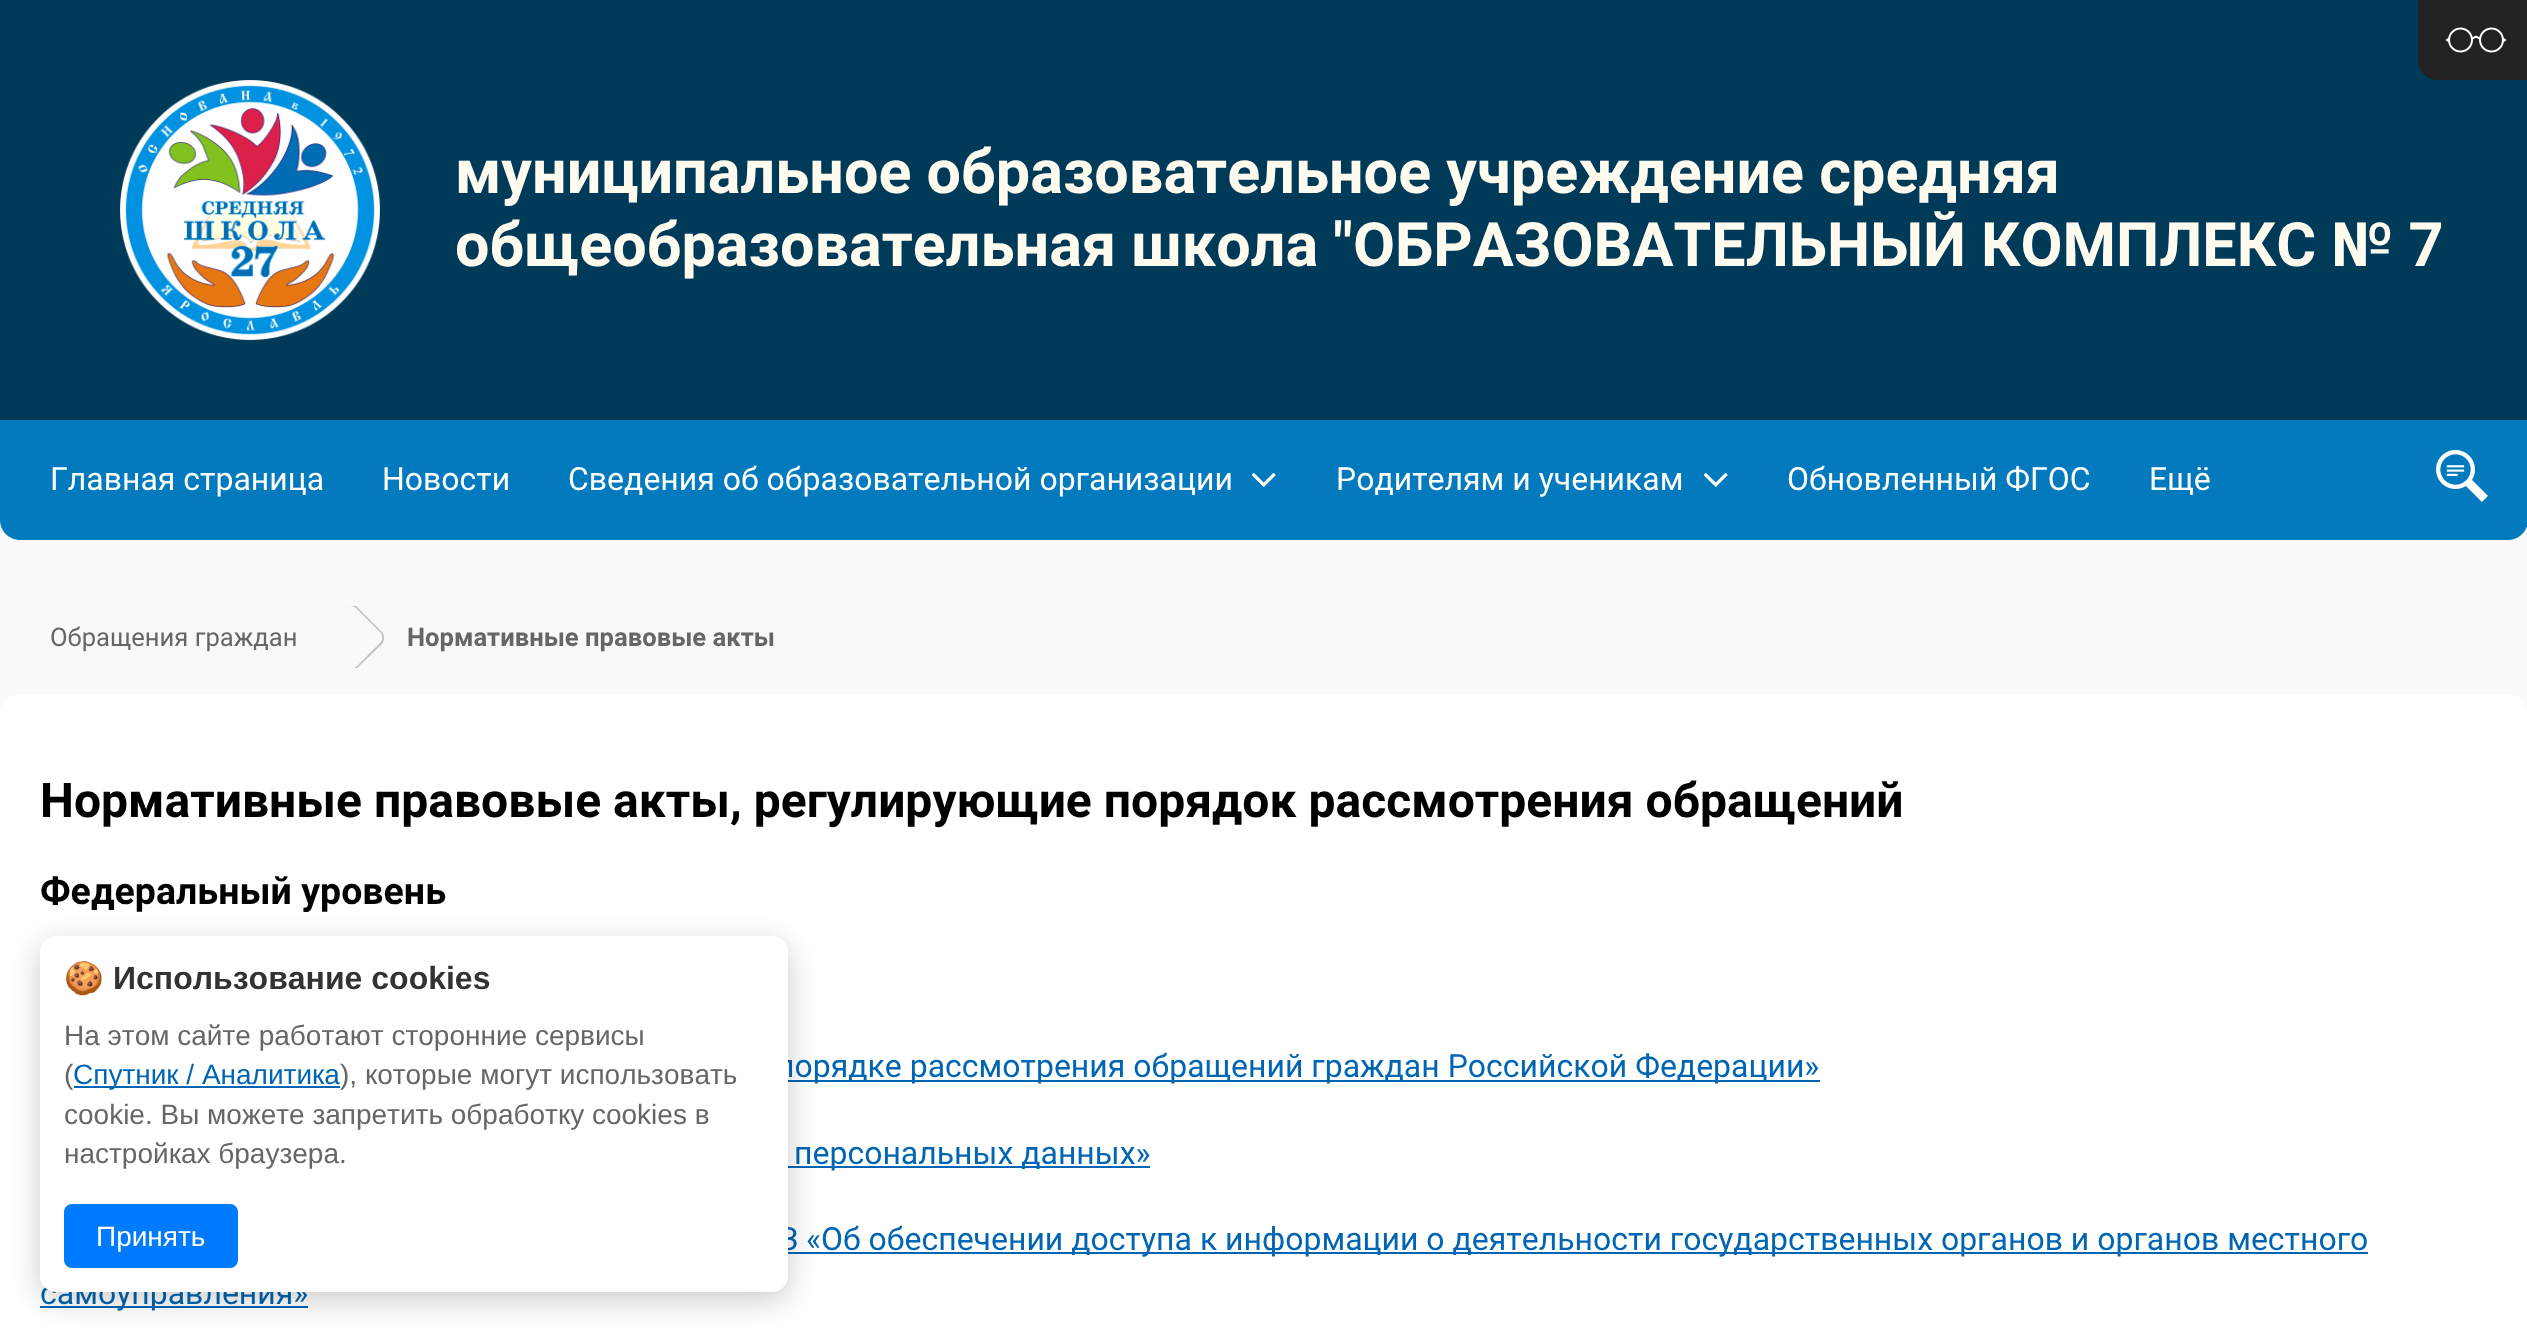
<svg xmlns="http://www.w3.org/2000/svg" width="2527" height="1331">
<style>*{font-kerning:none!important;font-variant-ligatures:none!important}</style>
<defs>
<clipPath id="clip1"><rect y="606" width="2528" height="62"/></clipPath>
</defs>
<rect width="100%" height="100%" fill="#f9f9f9"/>
<rect width="2527" height="420" fill="#003a59"/>
<path d="M2418 0h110v80h-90c-11 0-20-9-20-20z" fill="#222"/>
<image x="2446" y="27" width="60" height="26" href="media/1.png"/>
<image x="120" y="80" width="260" height="260" href="media/2.png"/>
<text x="455" y="193" style="font-family:Roboto;font-size:61.05px;font-weight:bold;fill:#fffbef">муниципальное образовательное учреждение средняя</text>
<text x="455" y="266" style="font-family:Roboto;font-size:61.05px;font-weight:bold;fill:#fffbef">общеобразовательная школа "ОБРАЗОВАТЕЛЬНЫЙ</text>
<text x="1981" y="266" style="font-family:Roboto;font-size:61.05px;font-weight:bold;fill:#fffbef">КОМПЛЕКС № 7</text>
<path d="M0 420h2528v100c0 11-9 20-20 20h-2488c-11 0-20-9-20-20z" fill="#027abd"/>
<text x="50" y="490" style="font-family:Roboto;font-size:32px;fill:#fff">Главная страница</text>
<text x="382" y="490" style="font-family:Roboto;font-size:32px;fill:#fff">Новости</text>
<text x="568" y="490" style="font-family:Roboto;font-size:32px;fill:#fff">Сведения об образовательной организации</text>
<image x="1251" y="473" width="25" height="14" href="media/3.png"/>
<text x="1336" y="490" style="font-family:Roboto;font-size:32px;fill:#fff">Родителям и ученикам</text>
<image x="1703" y="473" width="25" height="14" href="media/3.png"/>
<text x="1787" y="490" style="font-family:Roboto;font-size:32px;fill:#fff">Обновленный ФГОС</text>
<text x="2149" y="490" style="font-family:Roboto;font-size:32px;fill:#fff">Ещё</text>
<image x="2436" y="450" width="52" height="52" href="media/4.png"/>
<text x="50" y="646" style="font-family:Roboto;font-size:25.6px;fill:#666">Обращения граждан</text>
<g clip-path="url(#clip1)">
<path d="M358 608l23 23c4 3 4 10 0 14l-23 22c-3 4-10 4-14 0l-22-22c-4-4-4-11 0-14l22-23c4-4 11-4 14 0zm-1 1l23 23c3 3 3 8 0 11l-23 23c-4 4-10 4-13 1l-22-22c-4-4-4-11 0-14l22-23c3-3 9-3 13 1z" fill="#c0c0c0" fill-rule="evenodd"/>
</g>
<text x="407" y="646" style="font-family:Roboto;font-size:25.6px;font-weight:bold;fill:#666">Нормативные правовые акты</text>
<rect y="694" width="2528" height="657" rx="20" fill="#fff"/>
<text x="40" y="817" style="font-family:Roboto;font-size:48px;font-weight:bold;fill:#000">Нормативные правовые акты, регулирующие порядок рассмотрения обращений</text>
<text x="40" y="904" style="font-family:Roboto;font-size:37.5px;font-weight:bold;fill:#000">Федеральный уровень</text>
<rect x="788" y="1080" width="1032" height="2" fill="#0065b3"/>
<text x="776" y="1077" style="font-family:Roboto;font-size:32px;fill:#0065b3">порядке рассмотрения обращений граждан Российской Федерации»</text>
<rect x="788" y="1166" width="362" height="2" fill="#0065b3"/>
<text x="794" y="1164" style="font-family:Roboto;font-size:32px;fill:#0065b3">персональных данных»</text>
<rect x="788" y="1252" width="1580" height="2" fill="#0065b3"/>
<text x="779" y="1250" style="font-family:Roboto;font-size:32px;fill:#0065b3">З «Об обеспечении доступа к информации о деятельности государственных органов и органов местного</text>
<rect x="40" y="1306" width="268" height="2" fill="#0065b3"/>
<text x="40" y="1304" style="font-family:Roboto;font-size:32px;fill:#0065b3">самоуправления»</text>
<rect x="40" y="944" width="748" height="356" rx="16" fill="#00000033" filter="blur(15px)"/>
<rect x="40" y="936" width="748" height="356" rx="16" fill="#fff"/>
<text x="64" y="989" style="font-family:Noto Color Emoji;font-size:32px;font-weight:bold;fill:#333">🍪</text>
<text x="113" y="989" style="font-family:Liberation Sans;font-size:32px;font-weight:bold;fill:#333">Использование cookies</text>
<text x="64" y="1045" style="font-family:Liberation Sans;font-size:28px;fill:#666">На этом сайте работают сторонние сервисы</text>
<text x="64" y="1084" style="font-family:Liberation Sans;font-size:28px;fill:#666">(</text>
<rect x="74" y="1086" width="266" height="2" fill="#0065b3"/>
<text x="73" y="1084" style="font-family:Liberation Sans;font-size:28px;fill:#0065b3">Спутник / Аналитика</text>
<text x="340" y="1084" style="font-family:Liberation Sans;font-size:28px;fill:#666">), которые могут использовать</text>
<text x="64" y="1124" style="font-family:Liberation Sans;font-size:28px;fill:#666">cookie. Вы можете запретить обработку cookies в</text>
<text x="64" y="1163" style="font-family:Liberation Sans;font-size:28px;fill:#666">настройках браузера.</text>
<rect x="64" y="1204" width="174" height="64" rx="8" fill="#007bff"/>
<text x="96" y="1246" style="font-family:Liberation Sans;font-size:28px;fill:#fff">Принять</text>
</svg>
